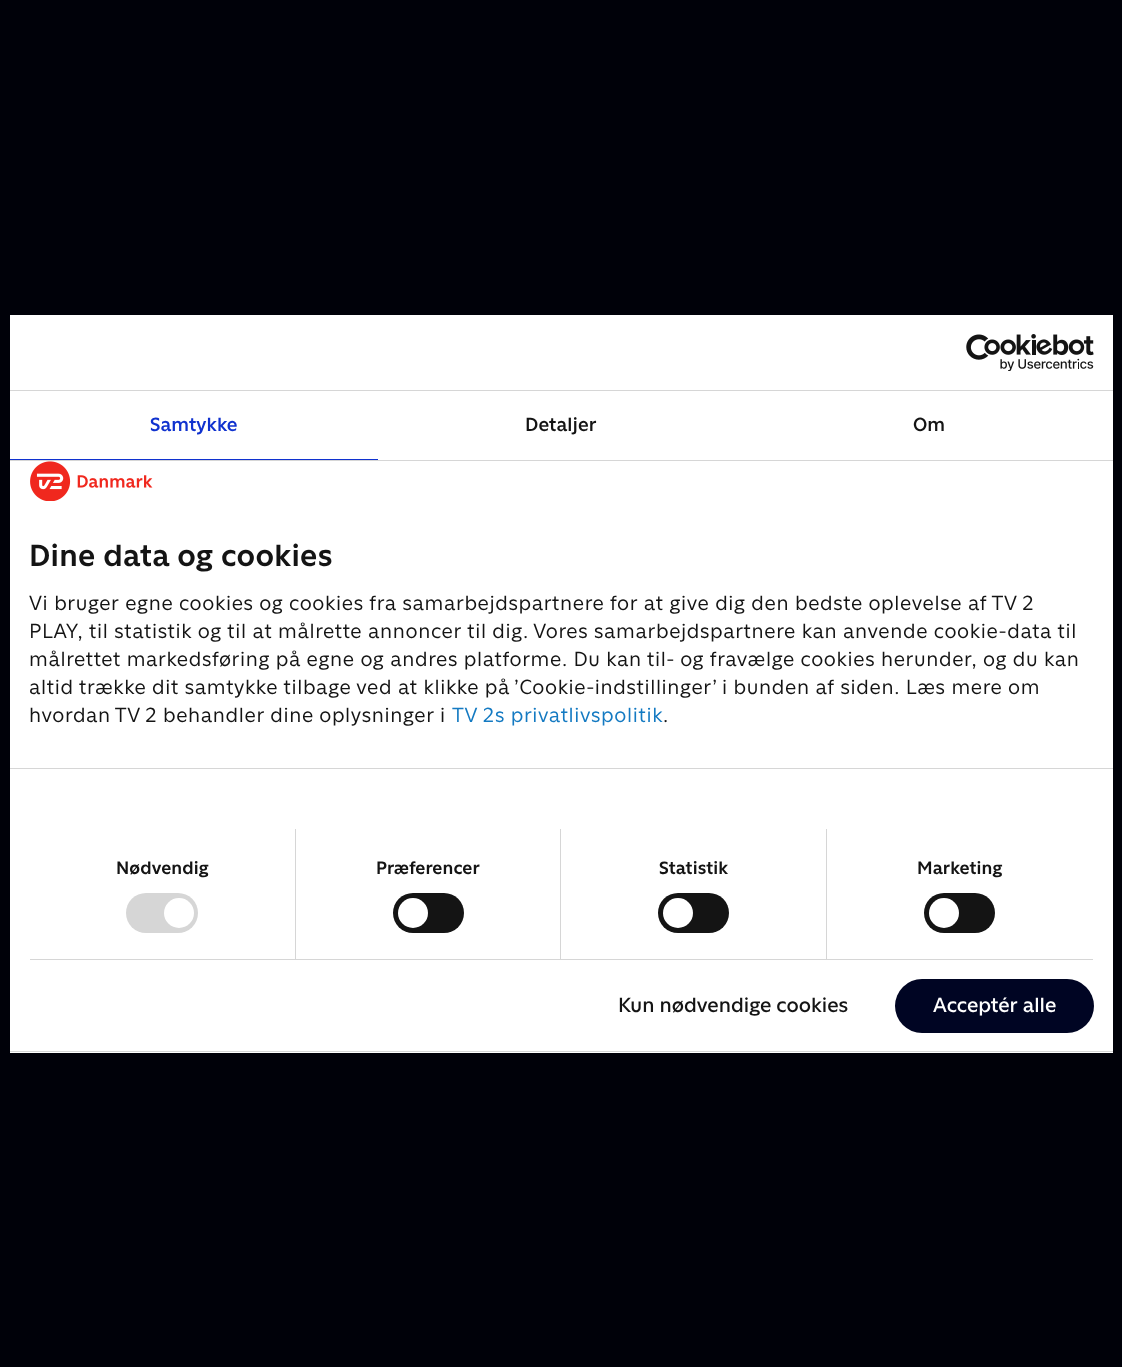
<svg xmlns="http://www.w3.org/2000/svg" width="1122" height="1367">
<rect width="100%" height="100%" fill="#000109"/>
<rect x="10" y="315" width="1103" height="738" fill="#fff"/>
<rect x="10" y="390" width="1103" height="1" fill="#d6d6d6"/>
<image x="966" y="334" width="128" height="37" href="media/1.png"/>
<rect x="10" y="460" width="1103" height="1" fill="#d6d6d6"/>
<rect x="10" y="459" width="368" height="1" fill="#1032cf"/>
<text x="150" y="431" style="font-family:'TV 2';font-size:18.75px;font-weight:600;letter-spacing:0.1px;fill:#1032cf">Samtykke</text>
<text x="525" y="431" style="font-family:'TV 2';font-size:18.75px;font-weight:600;letter-spacing:0.1px;fill:#141414">Detaljer</text>
<text x="913" y="431" style="font-family:'TV 2';font-size:18.75px;font-weight:600;letter-spacing:0.1px;fill:#141414">Om</text>
<image x="30" y="461" width="123" height="40" href="media/2.png"/>
<rect x="10" y="768" width="1103" height="1" fill="#d6d6d6"/>
<text x="29" y="566" style="font-family:'TV 2';font-size:30px;font-weight:bold;letter-spacing:0.3px;fill:#141414">Dine data og cookies</text>
<text x="29" y="610" style="font-family:'TV 2';font-size:20px;letter-spacing:0.62px;fill:#141414">Vi bruger egne cookies og cookies fra samarbejdspartnere for at give dig den bedste oplevelse af TV 2</text>
<text x="29" y="638" style="font-family:'TV 2';font-size:20px;letter-spacing:0.62px;fill:#141414">PLAY, til statistik og til at målrette annoncer til dig. Vores samarbejdspartnere kan anvende cookie-data til</text>
<text x="29" y="666" style="font-family:'TV 2';font-size:20px;letter-spacing:0.62px;fill:#141414">målrettet markedsføring på egne og andres platforme. Du kan til- og fravælge cookies herunder, og du kan</text>
<text x="29" y="694" style="font-family:'TV 2';font-size:20px;letter-spacing:0.62px;fill:#141414">altid trække dit samtykke tilbage ved at klikke på ’Cookie-indstillinger’ i bunden af siden. Læs mere om</text>
<text x="29" y="722" word-spacing="-0.25" style="font-family:'TV 2';font-size:20px;letter-spacing:0.62px;fill:#141414">hvordan TV 2 behandler dine oplysninger i</text>
<text x="452" y="722" style="font-family:'TV 2';font-size:20px;letter-spacing:0.62px;fill:#147ac2">TV 2s privatlivspolitik</text>
<text x="663" y="722" style="font-family:'TV 2';font-size:20px;letter-spacing:0.62px;fill:#141414">.</text>
<rect x="30" y="959" width="1063" height="1" fill="#d6d6d6"/>
<rect x="295" y="829" width="1" height="130" fill="#d6d6d6"/>
<text x="116" y="874" style="font-family:'TV 2';font-size:17.5px;font-weight:bold;letter-spacing:0.1px;fill:#141414">Nødvendig</text>
<rect x="126" y="893" width="72" height="40" rx="20" fill="#d6d6d6"/>
<circle cx="179" cy="913" r="15" fill="#fff"/>
<rect x="560" y="829" width="1" height="130" fill="#d6d6d6"/>
<text x="376" y="874" style="font-family:'TV 2';font-size:17.5px;font-weight:bold;letter-spacing:0.1px;fill:#141414">Præferencer</text>
<rect x="393" y="893" width="71" height="40" rx="20" fill="#141414"/>
<circle cx="413" cy="913" r="15" fill="#fff"/>
<rect x="826" y="829" width="1" height="130" fill="#d6d6d6"/>
<text x="659" y="874" style="font-family:'TV 2';font-size:17.5px;font-weight:bold;letter-spacing:0.1px;fill:#141414">Statistik</text>
<rect x="658" y="893" width="71" height="40" rx="20" fill="#141414"/>
<circle cx="678" cy="913" r="15" fill="#fff"/>
<text x="917" y="874" style="font-family:'TV 2';font-size:17.5px;font-weight:bold;letter-spacing:0.1px;fill:#141414">Marketing</text>
<rect x="924" y="893" width="71" height="40" rx="20" fill="#141414"/>
<circle cx="944" cy="913" r="15" fill="#fff"/>
<rect x="10" y="1051" width="1103" height="1" fill="#d6d6d6"/>
<text x="618" y="1012" style="font-family:'TV 2';font-size:20px;font-weight:500;fill:#141414">Kun nødvendige cookies</text>
<rect x="895" y="979" width="199" height="54" rx="27" fill="#000523"/>
<text x="933" y="1012" style="font-family:'TV 2';font-size:20px;font-weight:500;fill:#fff">Acceptér alle</text>
</svg>
